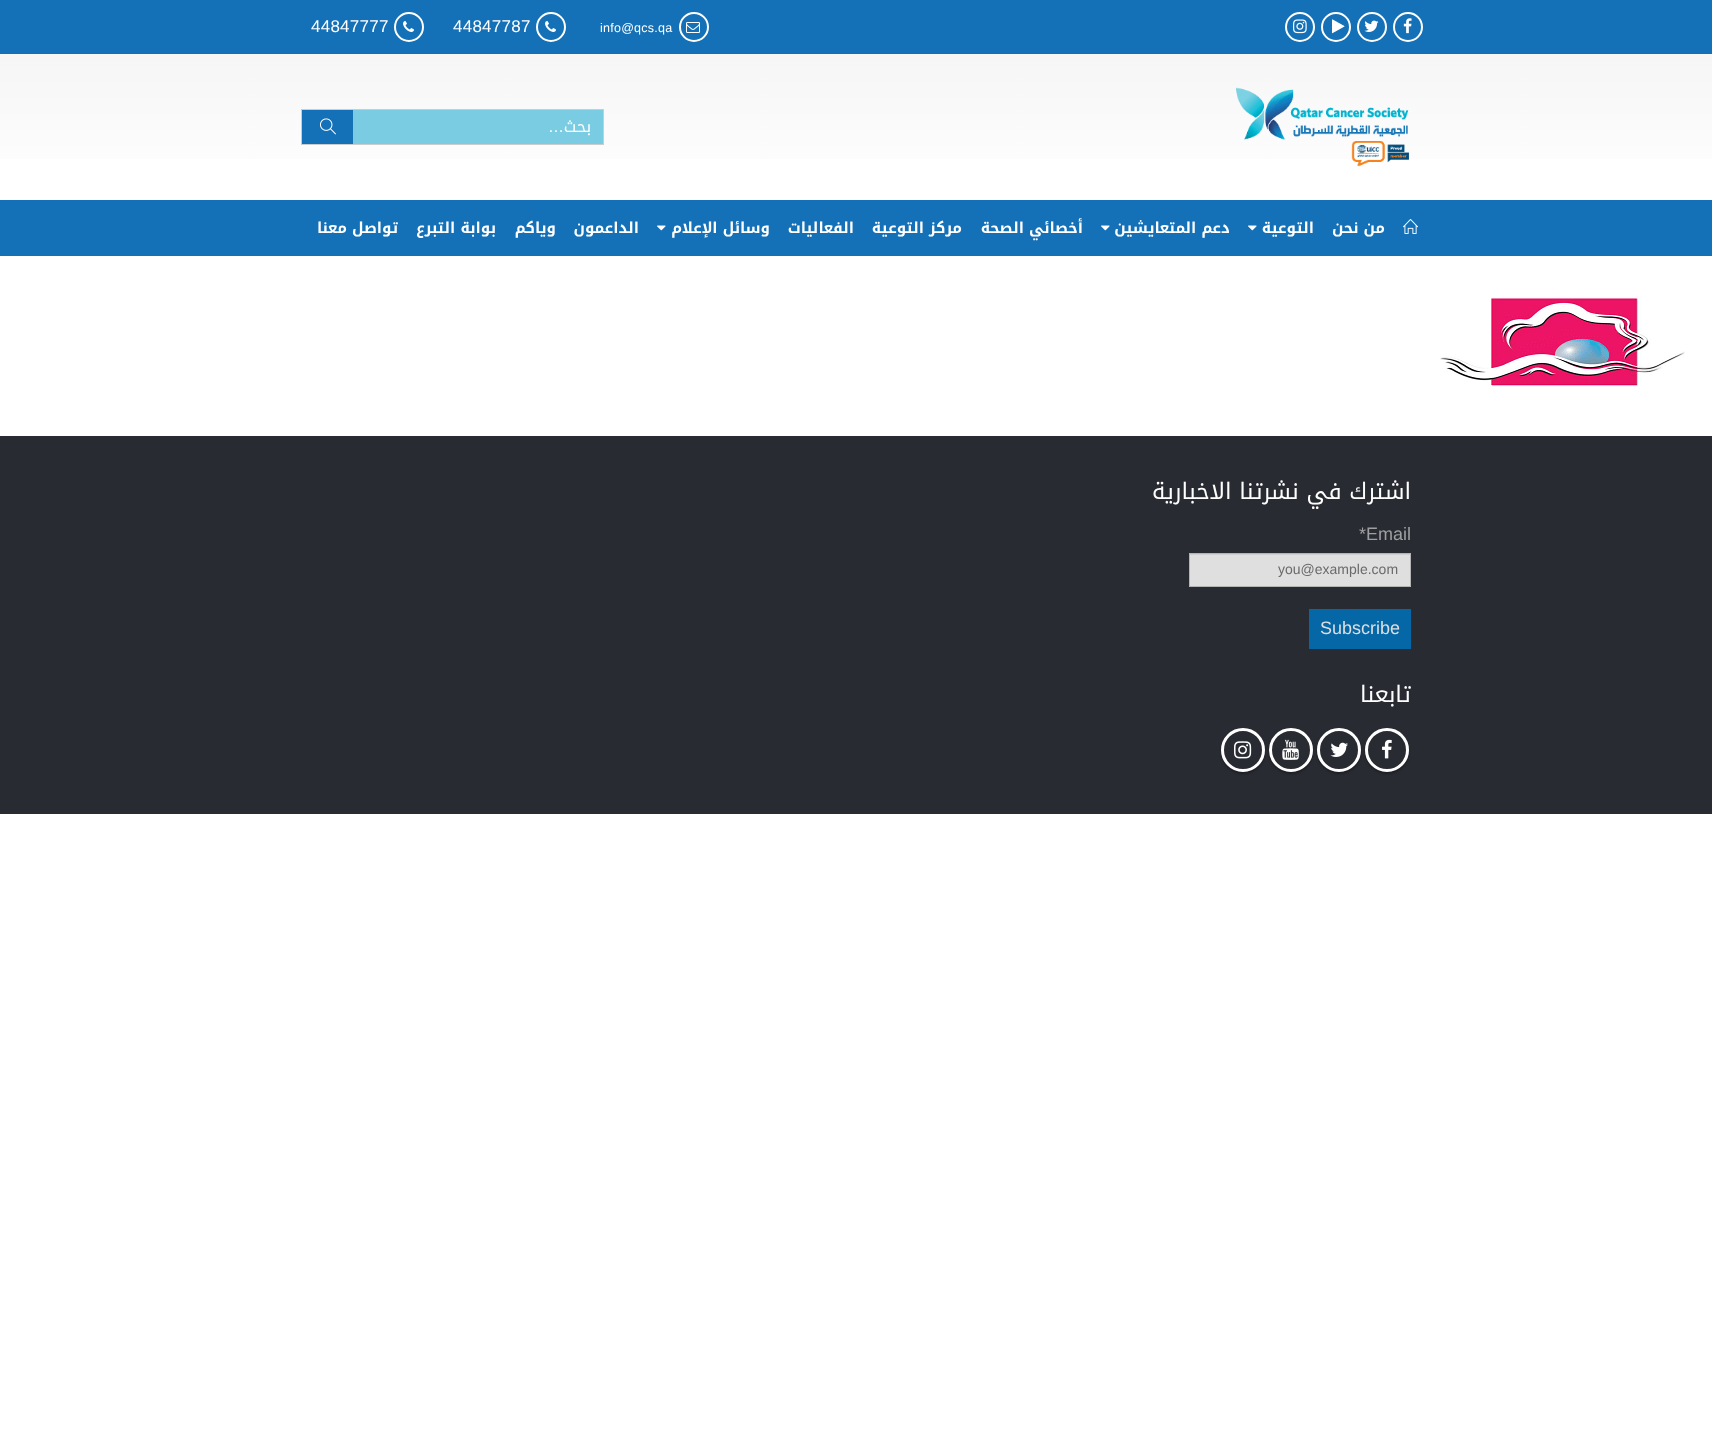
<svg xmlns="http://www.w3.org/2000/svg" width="1712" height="1439">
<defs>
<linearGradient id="g1" gradientUnits="userSpaceOnUse" x1="856" y1="54" x2="856" y2="200"><stop offset="0" stop-color="#f6f6f6"/><stop offset="1" stop-color="#fff"/></linearGradient>
<clipPath id="clip1"><path d="M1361 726h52v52h-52zm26 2c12 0 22 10 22 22c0 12-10 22-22 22c-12 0-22-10-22-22c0-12 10-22 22-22z" clip-rule="evenodd"/></clipPath>
<clipPath id="clip2"><path d="M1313 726h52v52h-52zm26 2c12 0 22 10 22 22c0 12-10 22-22 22c-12 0-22-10-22-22c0-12 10-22 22-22z" clip-rule="evenodd"/></clipPath>
<clipPath id="clip3"><path d="M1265 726h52v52h-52zm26 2c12 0 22 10 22 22c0 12-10 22-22 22c-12 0-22-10-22-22c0-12 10-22 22-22z" clip-rule="evenodd"/></clipPath>
<clipPath id="clip4"><path d="M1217 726h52v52h-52zm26 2c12 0 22 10 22 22c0 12-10 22-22 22c-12 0-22-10-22-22c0-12 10-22 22-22z" clip-rule="evenodd"/></clipPath>
</defs>
<rect width="100%" height="100%" fill="#fff"/>
<rect width="1712" height="54" fill="#1471b7"/>
<circle cx="1408" cy="27" r="14" fill="none" stroke="#fff" stroke-width="2"/>
<image x="1403" y="18" width="9" height="16" href="media/1.png"/>
<circle cx="1372" cy="27" r="14" fill="none" stroke="#fff" stroke-width="2"/>
<image x="1364" y="20" width="15" height="12" href="media/2.png"/>
<circle cx="1336" cy="27" r="14" fill="none" stroke="#fff" stroke-width="2"/>
<image x="1332" y="19" width="13" height="15" href="media/3.png"/>
<circle cx="1300" cy="27" r="14" fill="none" stroke="#fff" stroke-width="2"/>
<image x="1293" y="19" width="14" height="15" href="media/4.png"/>
<circle cx="694" cy="27" r="14" fill="none" stroke="#fff" stroke-width="2"/>
<image x="686" y="22" width="14" height="11" href="media/5.png"/>
<text x="600" y="32" style="font-family:Liberation Sans;font-size:12.5px;letter-spacing:0.25px;fill:#fff">info@qcs.qa</text>
<circle cx="551" cy="27" r="14" fill="none" stroke="#fff" stroke-width="2"/>
<image x="545" y="21" width="11" height="11" href="media/6.png"/>
<text x="453" y="32" style="font-family:Liberation Sans;font-size:17px;letter-spacing:0.25px;fill:#fff">44847787</text>
<circle cx="409" cy="27" r="14" fill="none" stroke="#fff" stroke-width="2"/>
<image x="403" y="21" width="11" height="11" href="media/6.png"/>
<text x="311" y="32" style="font-family:Liberation Sans;font-size:17px;letter-spacing:0.25px;fill:#fff">44847777</text>
<rect y="54" width="1712" height="105" fill="url(#g1)"/>
<image x="1236" y="87" width="173" height="80" href="media/7.png"/>
<rect x="301.5" y="109.5" width="302" height="35" fill="none" stroke="#ccc"/>
<rect x="353" y="110" width="250" height="34" fill="#7acce3"/>
<text x="591" y="132" style="font-family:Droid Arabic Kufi;font-size:16px;direction:rtl;fill:#fff">بحث</text>
<text x="564" y="132" style="font-family:Liberation Sans;font-size:16px;direction:rtl;fill:#fff">…</text>
<rect x="302" y="110" width="51" height="34" fill="#1471b7"/>
<image x="320" y="118" width="16" height="17" href="media/8.png"/>
<rect y="200" width="1712" height="56" fill="#1471b7"/>
<image x="1403" y="219" width="15" height="15" href="media/9.png"/>
<text x="1385" y="233" style="font-family:Droid Arabic Kufi;font-size:15px;font-weight:bold;direction:rtl;fill:#fff">من نحن</text>
<text x="1314" y="233" style="font-family:Droid Arabic Kufi;font-size:15px;font-weight:bold;direction:rtl;fill:#fff">التوعية</text>
<image x="1248" y="225" width="9" height="6" href="media/10.png"/>
<text x="1230" y="233" style="font-family:Droid Arabic Kufi;font-size:15px;font-weight:bold;direction:rtl;fill:#fff">دعم المتعايشين</text>
<image x="1101" y="225" width="9" height="6" href="media/10.png"/>
<text x="1083" y="233" style="font-family:Droid Arabic Kufi;font-size:15px;font-weight:bold;direction:rtl;fill:#fff">أخصائي الصحة</text>
<text x="962" y="233" style="font-family:Droid Arabic Kufi;font-size:15px;font-weight:bold;direction:rtl;fill:#fff">مركز التوعية</text>
<text x="854" y="233" style="font-family:Droid Arabic Kufi;font-size:15px;font-weight:bold;direction:rtl;fill:#fff">الفعاليات</text>
<text x="770" y="233" style="font-family:Droid Arabic Kufi;font-size:15px;font-weight:bold;direction:rtl;fill:#fff">وسائل الإعلام</text>
<image x="657" y="225" width="9" height="6" href="media/10.png"/>
<text x="639" y="233" style="font-family:Droid Arabic Kufi;font-size:15px;font-weight:bold;direction:rtl;fill:#fff">الداعمون</text>
<text x="556" y="233" style="font-family:Droid Arabic Kufi;font-size:15px;font-weight:bold;direction:rtl;fill:#fff">وياكم</text>
<text x="496" y="233" style="font-family:Droid Arabic Kufi;font-size:15px;font-weight:bold;direction:rtl;fill:#fff">بوابة التبرع</text>
<text x="398" y="233" style="font-family:Droid Arabic Kufi;font-size:15px;font-weight:bold;direction:rtl;fill:#fff">تواصل معنا</text>
<image x="1440" y="296" width="245" height="90" href="media/11.png"/>
<rect y="436" width="1712" height="378" fill="#292b33"/>
<text x="1411" y="499" style="font-family:Droid Arabic Kufi;font-size:22.75px;direction:rtl;fill:#fff">اشترك في نشرتنا الاخبارية</text>
<text x="1359" y="540" style="font-family:Liberation Sans;font-size:18px;fill:#9e9fa0">*Email</text>
<rect x="1190" y="555" width="220" height="31" fill="#dfdfe0"/>
<rect x="1190" y="554" width="220" height="1" fill="#cfcfd0"/>
<rect x="1189.5" y="553.5" width="221" height="33" fill="none" stroke="#b4b4b5"/>
<text x="1278" y="574" style="font-family:Liberation Sans;font-size:14px;fill:#6a6a6b">you@example.com</text>
<rect x="1309" y="609" width="102" height="40" fill="#0667a7"/>
<text x="1320" y="634" style="font-family:Liberation Sans;font-size:18px;fill:#dfdfe0">Subscribe</text>
<text x="1411" y="702" style="font-family:Droid Arabic Kufi;font-size:22.75px;direction:rtl;fill:#fff">تابعنا</text>
<g clip-path="url(#clip1)">
<rect x="1365" y="730" width="44" height="44" rx="22" fill="#0000004d" filter="blur(1px)"/>
</g>
<circle cx="1387" cy="750" r="20.5" fill="none" stroke="#fff" stroke-width="3"/>
<image x="1382" y="739" width="10" height="20" href="media/12.png"/>
<g clip-path="url(#clip2)">
<rect x="1317" y="730" width="44" height="44" rx="22" fill="#0000004d" filter="blur(1px)"/>
</g>
<circle cx="1339" cy="750" r="20.5" fill="none" stroke="#fff" stroke-width="3"/>
<image x="1330" y="742" width="18" height="15" href="media/13.png"/>
<g clip-path="url(#clip3)">
<rect x="1269" y="730" width="44" height="44" rx="22" fill="#0000004d" filter="blur(1px)"/>
</g>
<circle cx="1291" cy="750" r="20.5" fill="none" stroke="#fff" stroke-width="3"/>
<image x="1282" y="739" width="17" height="21" href="media/14.png"/>
<g clip-path="url(#clip4)">
<rect x="1221" y="730" width="44" height="44" rx="22" fill="#0000004d" filter="blur(1px)"/>
</g>
<circle cx="1243" cy="750" r="20.5" fill="none" stroke="#fff" stroke-width="3"/>
<image x="1234" y="741" width="18" height="18" href="media/15.png"/>
</svg>
